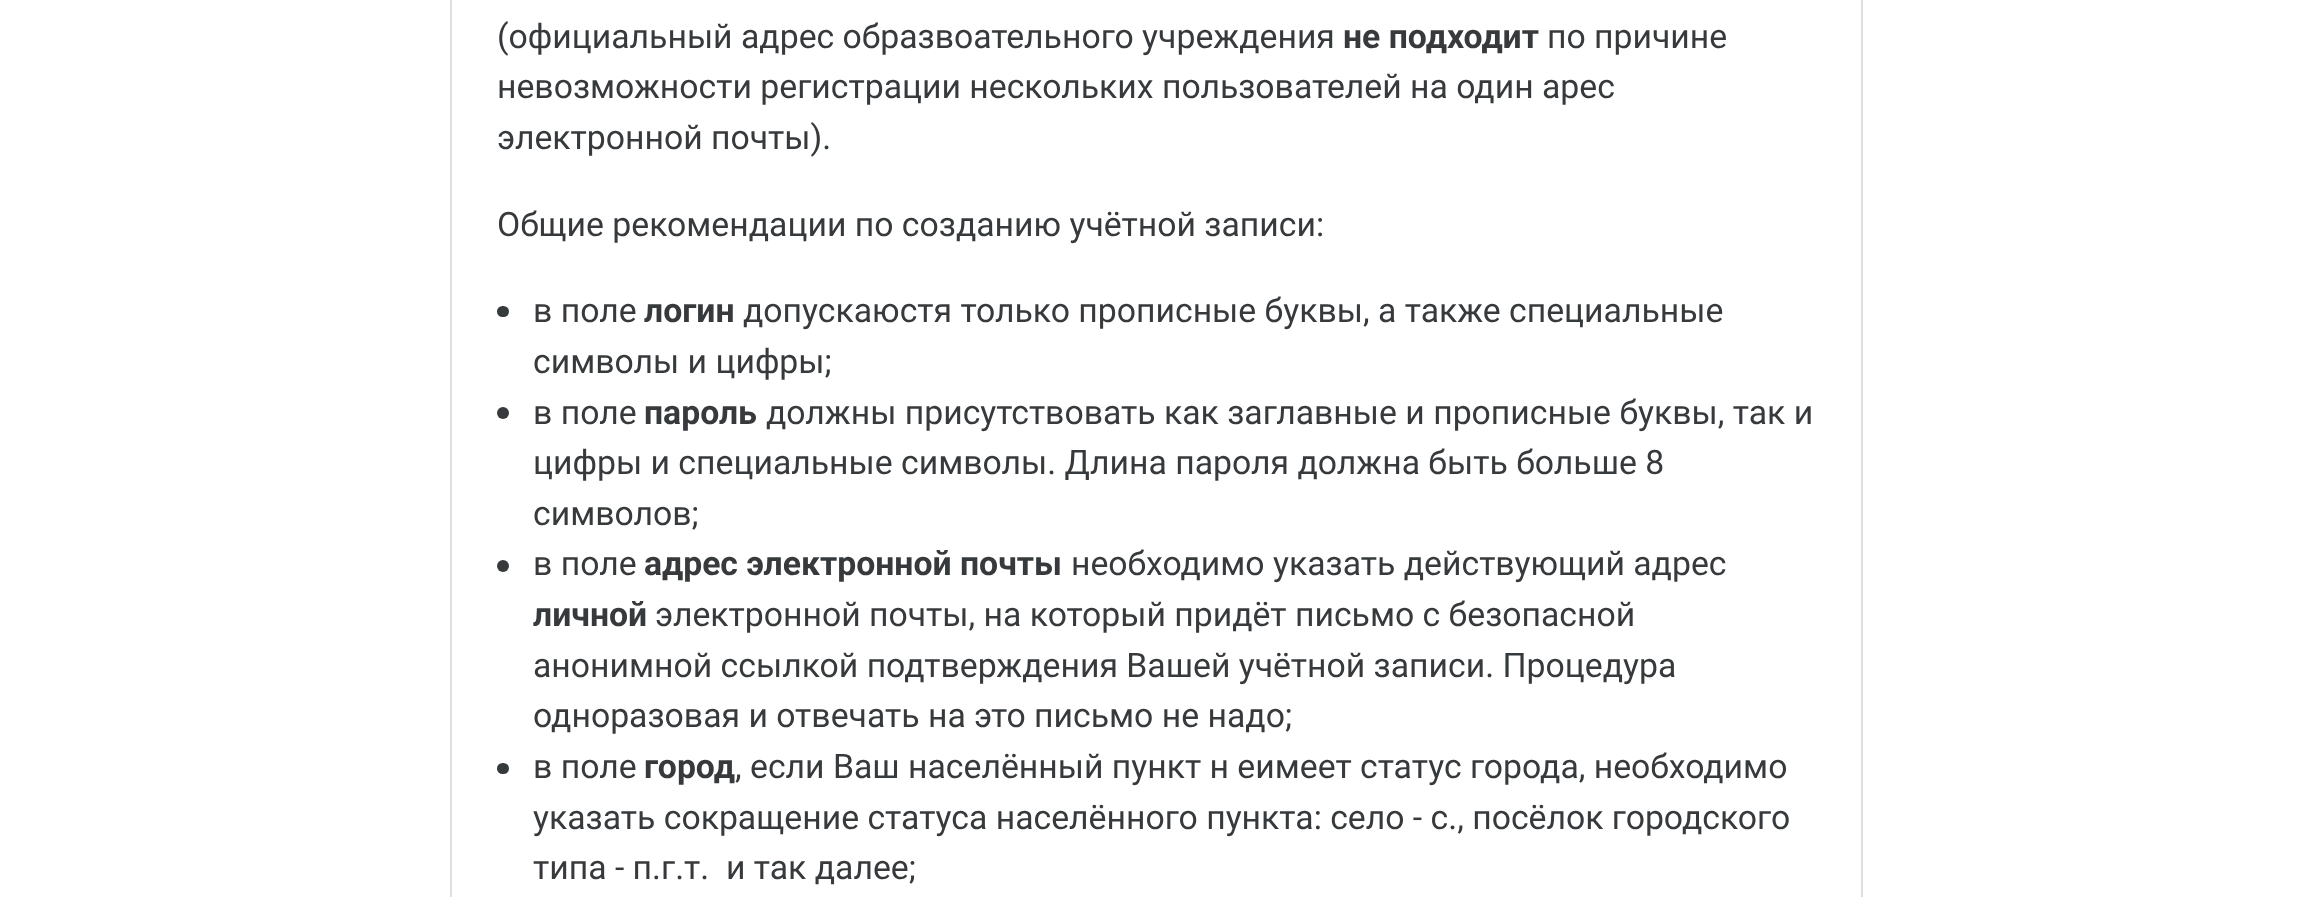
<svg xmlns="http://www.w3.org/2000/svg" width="2313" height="897">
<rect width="100%" height="100%" fill="#fff"/>
<rect x="451" y="-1" width="1411" height="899" fill="none" stroke="#dfdfdf" stroke-width="2"/>
<text x="497" y="48" style="font-family:Roboto;font-size:33.75px;fill:#373a3c">(официальный адрес образвоательного учреждения</text>
<text x="1343" y="48" style="font-family:Roboto;font-size:33.75px;font-weight:bold;fill:#373a3c">не подходит</text>
<text x="1547" y="48" style="font-family:Roboto;font-size:33.75px;fill:#373a3c">по причине</text>
<text x="497" y="98" style="font-family:Roboto;font-size:33.75px;fill:#373a3c">невозможности регистрации нескольких пользователей на один арес</text>
<text x="497" y="149" style="font-family:Roboto;font-size:33.75px;fill:#373a3c">электронной почты).</text>
<text x="497" y="236" style="font-family:Roboto;font-size:33.75px;fill:#373a3c">Общие рекомендации по созданию учётной записи:</text>
<rect x="497" y="306" width="12" height="11" rx="5.5" fill="#373a3c"/>
<text x="533" y="322" style="font-family:Roboto;font-size:33.75px;fill:#373a3c">в поле</text>
<text x="644" y="322" style="font-family:Roboto;font-size:33.75px;font-weight:bold;fill:#373a3c">логин</text>
<text x="743" y="322" style="font-family:Roboto;font-size:33.75px;fill:#373a3c">допускаюстя только прописные буквы, а также специальные</text>
<text x="533" y="373" style="font-family:Roboto;font-size:33.75px;fill:#373a3c">символы и цифры;</text>
<circle cx="503" cy="413" r="6" fill="#373a3c"/>
<text x="533" y="424" style="font-family:Roboto;font-size:33.75px;fill:#373a3c">в поле</text>
<text x="644" y="424" style="font-family:Roboto;font-size:33.75px;font-weight:bold;fill:#373a3c">пароль</text>
<text x="766" y="424" style="font-family:Roboto;font-size:33.75px;fill:#373a3c">должны присутствовать как заглавные и прописные буквы, так и</text>
<text x="533" y="474" style="font-family:Roboto;font-size:33.75px;fill:#373a3c">цифры и специальные символы. Длина пароля должна быть больше 8</text>
<text x="533" y="525" style="font-family:Roboto;font-size:33.75px;fill:#373a3c">символов;</text>
<circle cx="503" cy="566" r="6" fill="#373a3c"/>
<text x="533" y="575" style="font-family:Roboto;font-size:33.75px;fill:#373a3c">в поле</text>
<text x="644" y="575" style="font-family:Roboto;font-size:33.75px;font-weight:bold;fill:#373a3c">адрес электронной почты</text>
<text x="1071" y="575" style="font-family:Roboto;font-size:33.75px;fill:#373a3c">необходимо указать действующий адрес</text>
<text x="533" y="626" style="font-family:Roboto;font-size:33.75px;font-weight:bold;fill:#373a3c">личной</text>
<text x="655" y="626" style="font-family:Roboto;font-size:33.75px;fill:#373a3c">электронной почты, на который придёт письмо с безопасной</text>
<text x="533" y="677" style="font-family:Roboto;font-size:33.75px;fill:#373a3c">анонимной ссылкой подтверждения Вашей учётной записи. Процедура</text>
<text x="533" y="727" style="font-family:Roboto;font-size:33.75px;fill:#373a3c">одноразовая и отвечать на это письмо не надо;</text>
<rect x="497" y="763" width="12" height="11" rx="5.5" fill="#373a3c"/>
<text x="533" y="778" style="font-family:Roboto;font-size:33.75px;fill:#373a3c">в поле</text>
<text x="644" y="778" style="font-family:Roboto;font-size:33.75px;font-weight:bold;fill:#373a3c">город</text>
<text x="735" y="778" style="font-family:Roboto;font-size:33.75px;fill:#373a3c">, если Ваш населённый пункт н еимеет статус города, необходимо</text>
<text x="533" y="829" style="font-family:Roboto;font-size:33.75px;fill:#373a3c">указать сокращение статуса населённого пункта: село - с., посёлок городского</text>
<text x="533" y="879" style="font-family:Roboto;font-size:33.75px;fill:#373a3c" xml:space="preserve">типа - п.г.т.  и так далее;</text>
</svg>
